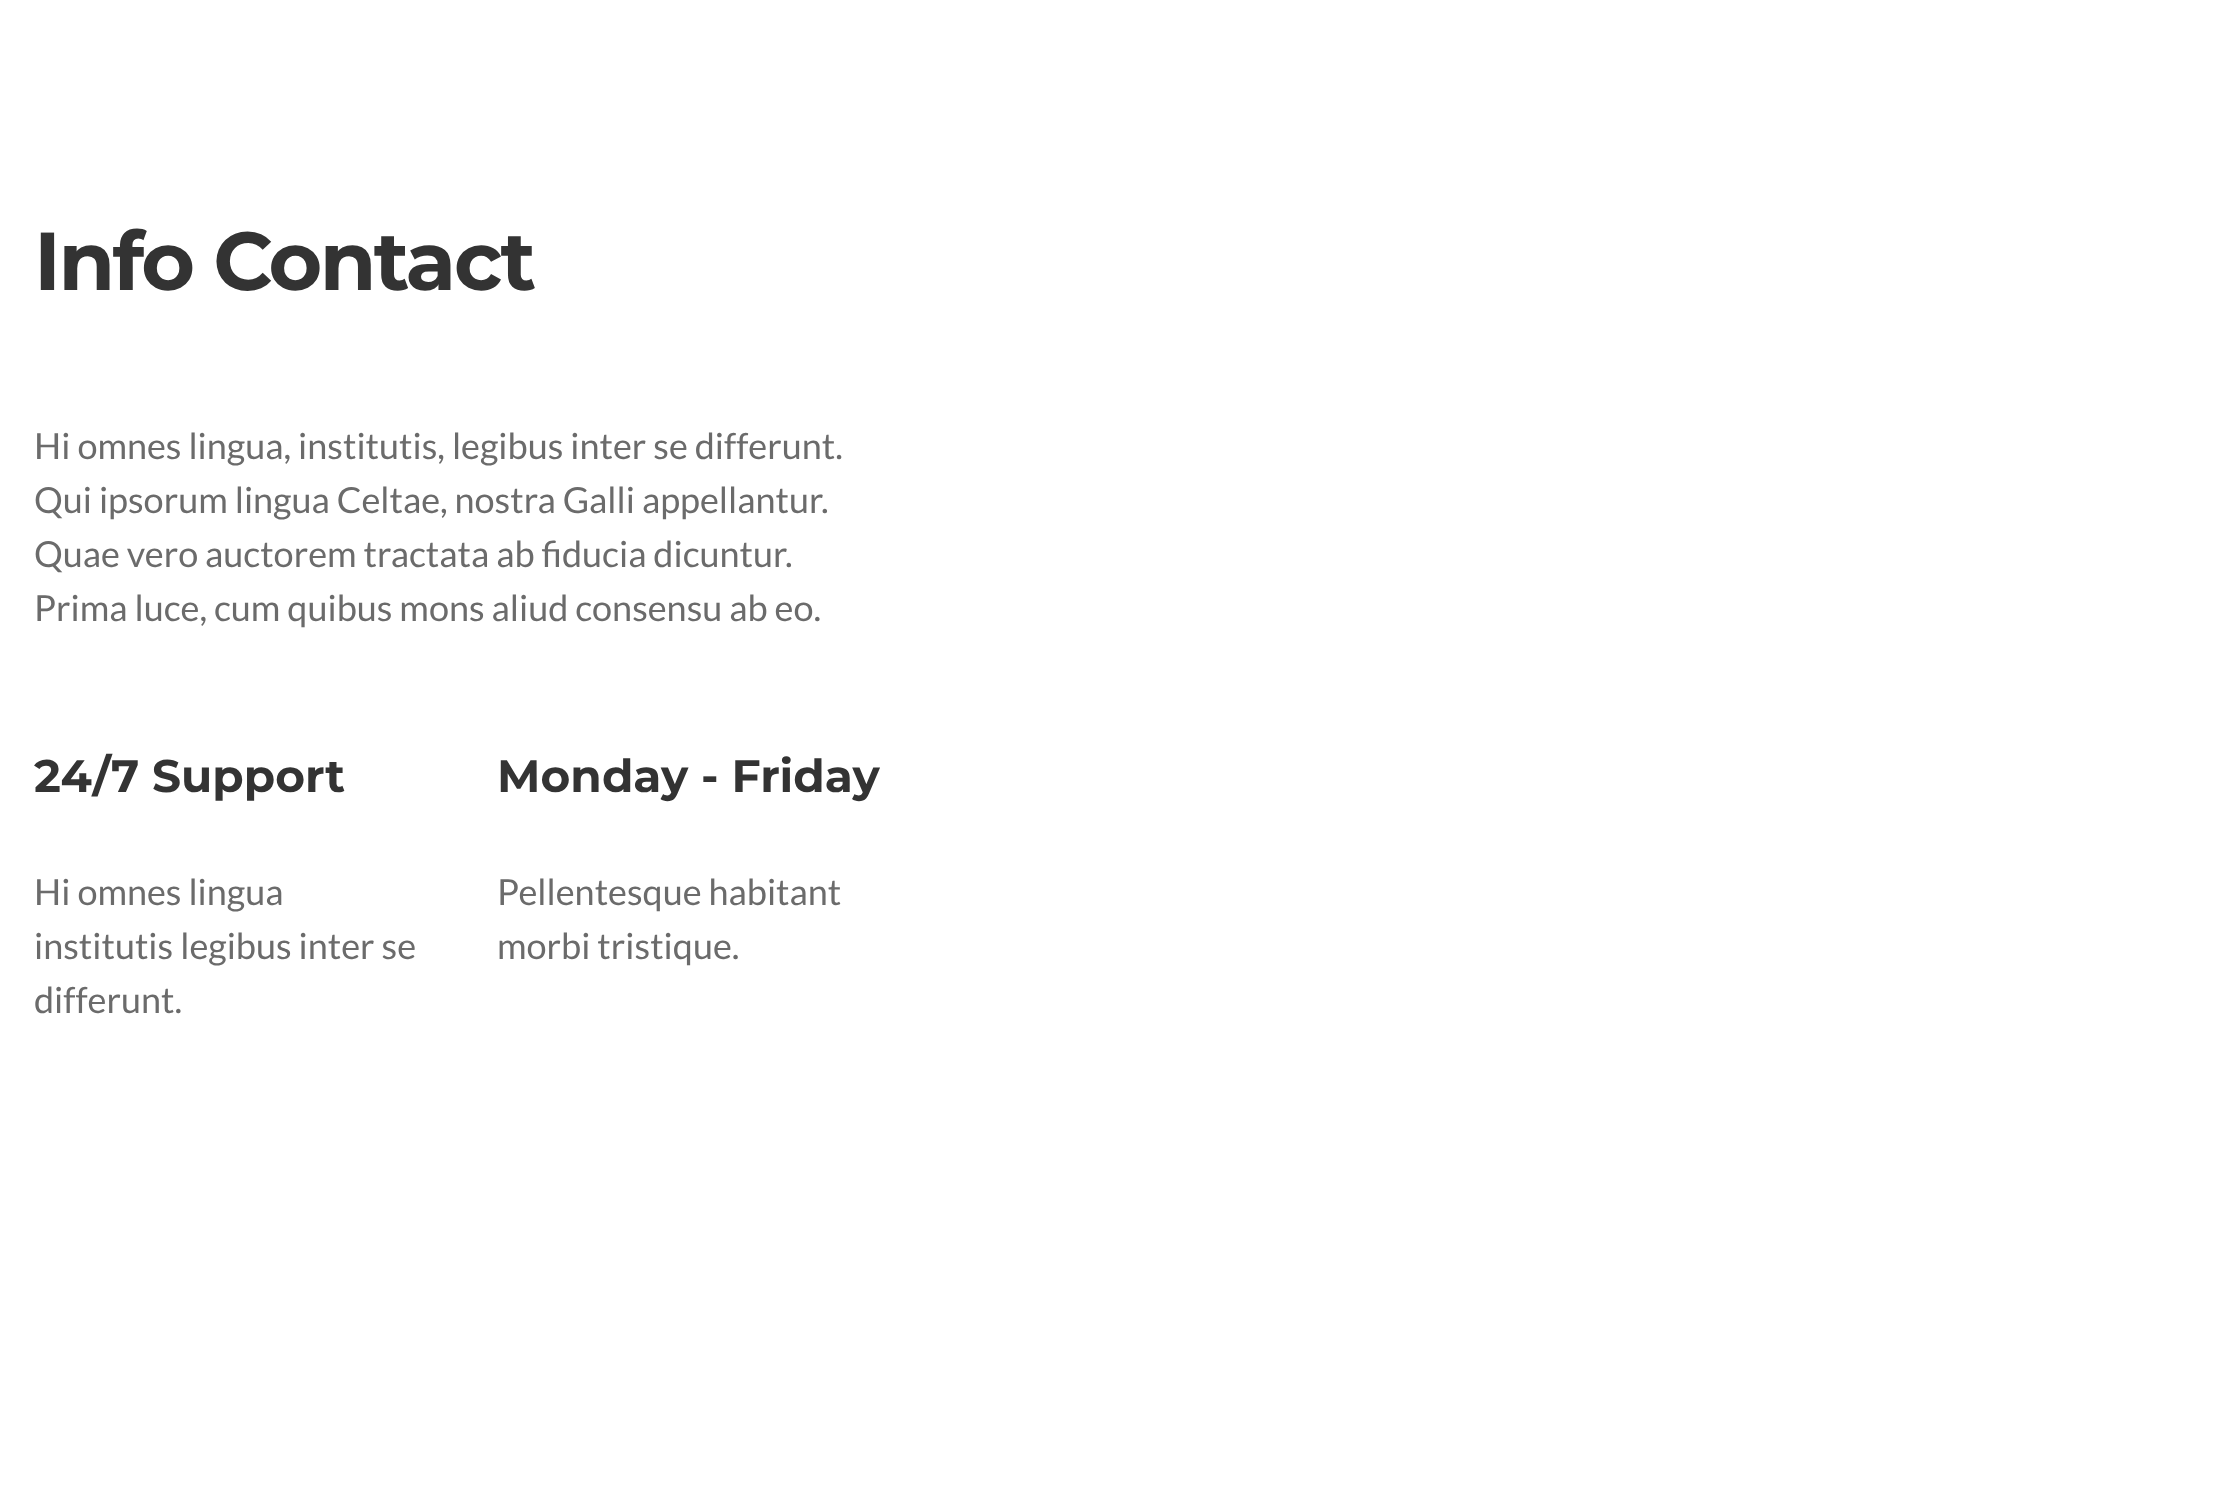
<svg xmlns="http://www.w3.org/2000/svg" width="2221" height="1488">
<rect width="100%" height="100%" fill="#fff"/>
<text x="34" y="290" style="font-family:Montserrat;font-size:82px;font-weight:bold;letter-spacing:-2.5px;fill:#333">Info Contact</text>
<text x="34" y="459" style="font-family:Lato;font-size:36px;fill:#6b6b6b">Hi omnes lingua, institutis, legibus inter se differunt.</text>
<text x="34" y="513" style="font-family:Lato;font-size:36px;fill:#6b6b6b">Qui ipsorum lingua Celtae, nostra Galli appellantur.</text>
<text x="34" y="567" style="font-family:Lato;font-size:36px;fill:#6b6b6b">Quae vero auctorem tractata ab fiducia dicuntur.</text>
<text x="34" y="621" style="font-family:Lato;font-size:36px;fill:#6b6b6b">Prima luce, cum quibus mons aliud consensu ab eo.</text>
<text x="34" y="792" style="font-family:Montserrat;font-size:45.5px;font-weight:bold;fill:#333">24/7 Support</text>
<text x="34" y="905" style="font-family:Lato;font-size:36px;fill:#6b6b6b">Hi omnes lingua</text>
<text x="34" y="959" style="font-family:Lato;font-size:36px;fill:#6b6b6b">institutis legibus inter se</text>
<text x="34" y="1013" style="font-family:Lato;font-size:36px;fill:#6b6b6b">differunt.</text>
<text x="497" y="792" style="font-family:Montserrat;font-size:45.5px;font-weight:bold;fill:#333">Monday - Friday</text>
<text x="497" y="905" style="font-family:Lato;font-size:36px;fill:#6b6b6b">Pellentesque habitant</text>
<text x="497" y="959" style="font-family:Lato;font-size:36px;fill:#6b6b6b">morbi tristique.</text>
</svg>
